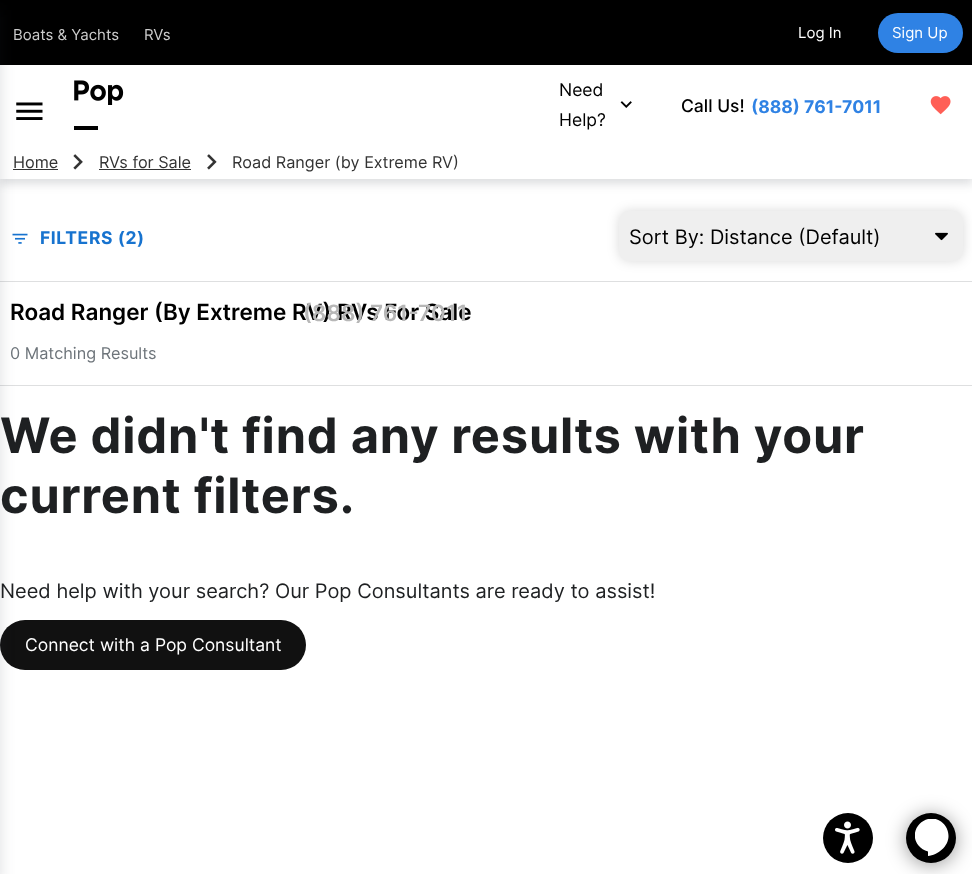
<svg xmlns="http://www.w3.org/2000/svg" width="972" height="874">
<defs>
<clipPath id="clip1"><rect x="915" y="819" width="34" height="37"/></clipPath>
</defs>
<rect width="100%" height="100%" fill="#fff"/>
<rect y="5" width="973" height="179" fill="#2a343d29" filter="blur(5px)"/>
<rect y="65" width="972" height="114" fill="#fff"/>
<rect width="972" height="65" fill="#000"/>
<text x="13" y="40" style="font-family:Inter;font-size:15px;fill:#ccc">Boats &amp; Yachts</text>
<text x="144" y="40" style="font-family:Inter;font-size:15px;fill:#ccc">RVs</text>
<text x="798" y="38" style="font-family:Inter;font-size:15px;fill:#fff">Log In</text>
<rect x="878" y="13" width="85" height="40" rx="20" fill="#2f82e4"/>
<text x="892" y="38" style="font-family:Inter;font-size:15px;fill:#fff">Sign Up</text>
<rect x="13" y="169" width="45" height="1" fill="#333"/>
<image x="16" y="102" width="27" height="18" href="media/3.png"/>
<rect y="281" width="972" height="1" fill="#dedfe0"/>
<image x="12" y="233" width="16" height="11" href="media/7.png"/>
<rect y="385" width="972" height="1" fill="#dedfe0"/>
<rect y="620" width="306" height="50" rx="25" fill="#111"/>
<rect x="-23" y="10" width="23" height="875" fill="#2a343d29" filter="blur(7.5px)"/>
<text x="13" y="168" style="font-family:Inter;font-size:16.25px;fill:#333">Home</text>
<image x="73" y="154" width="10" height="16" href="media/1.png"/>
<text x="99" y="168" style="font-family:Inter;font-size:16.25px;fill:#333">RVs for Sale</text>
<rect x="99" y="169" width="92" height="1" fill="#333"/>
<image x="207" y="154" width="10" height="16" href="media/2.png"/>
<text x="232" y="168" style="font-family:Inter;font-size:16.25px;fill:#333">Road Ranger (by Extreme RV)</text>
<image x="74" y="80" width="50" height="50" href="media/4.png"/>
<text x="559" y="96" style="font-family:Inter;font-size:17.5px;fill:#000">Need</text>
<text x="559" y="126" style="font-family:Inter;font-size:17.5px;fill:#000">Help?</text>
<image x="620" y="101" width="12" height="7" href="media/5.png"/>
<text x="10" y="320" style="font-family:Inter;font-size:22.5px;font-weight:600;fill:#000">Road Ranger (By Extreme RV) RVs For Sale</text>
<text x="303" y="321" style="font-family:Inter;font-size:22.5px;font-weight:600;fill:#b7b7b7">(888) 761-7011</text>
<text x="681" y="112" style="font-family:Inter;font-size:17.5px;font-weight:500;fill:#000">Call Us!</text>
<text x="751" y="113" style="font-family:Inter;font-size:17.5px;font-weight:bold;fill:#2f82e4">(888) 761-7011</text>
<image x="930" y="96" width="21" height="19" href="media/6.png"/>
<text x="40" y="244" style="font-family:Inter;font-size:17.5px;font-weight:bold;letter-spacing:0.6px;fill:#1773cf">FILTERS (2)</text>
<rect x="619" y="211" width="344" height="50" rx="10" fill="#00000026" filter="blur(6px)"/>
<rect x="619" y="211" width="344" height="50" rx="10" fill="#efefef"/>
<image x="935" y="232" width="13" height="9" href="media/8.png"/>
<text x="629" y="244" style="font-family:Inter;font-size:20px;fill:#000">Sort By: Distance (Default)</text>
<text x="10" y="359" style="font-family:Inter;font-size:16.25px;fill:#6d747a">0 Matching Results</text>
<text x="0" y="453" style="font-family:Inter;font-size:48.75px;font-weight:bold;letter-spacing:0.8px;fill:#1e2022">We didn't find any results with your</text>
<text x="0" y="513" style="font-family:Inter;font-size:48.75px;font-weight:bold;letter-spacing:0.8px;fill:#1e2022">current filters.</text>
<text x="0" y="598" style="font-family:Inter;font-size:20px;fill:#1e2022">Need help with your search? Our Pop Consultants are ready to assist!</text>
<text x="25" y="651" style="font-family:Inter;font-size:17.5px;fill:#fff">Connect with a Pop Consultant</text>
<circle cx="848" cy="838" r="25" fill="#000"/>
<image x="835" y="821" width="25" height="33" href="media/9.png"/>
<rect x="906" y="815" width="50" height="50" rx="25" fill="#00000066" filter="blur(9.5px)"/>
<circle cx="931" cy="838" r="25" fill="#000"/>
<g clip-path="url(#clip1)">
<path d="M948.5 836c0 10.5-10.5 19-20.5 20v-4.5c-4-1-7-3-9.5-6c-12-15 7.5-34.5 22.5-24c5 3.5 7.5 9 7.5 14.5z" fill="#fff"/>
</g>
</svg>
